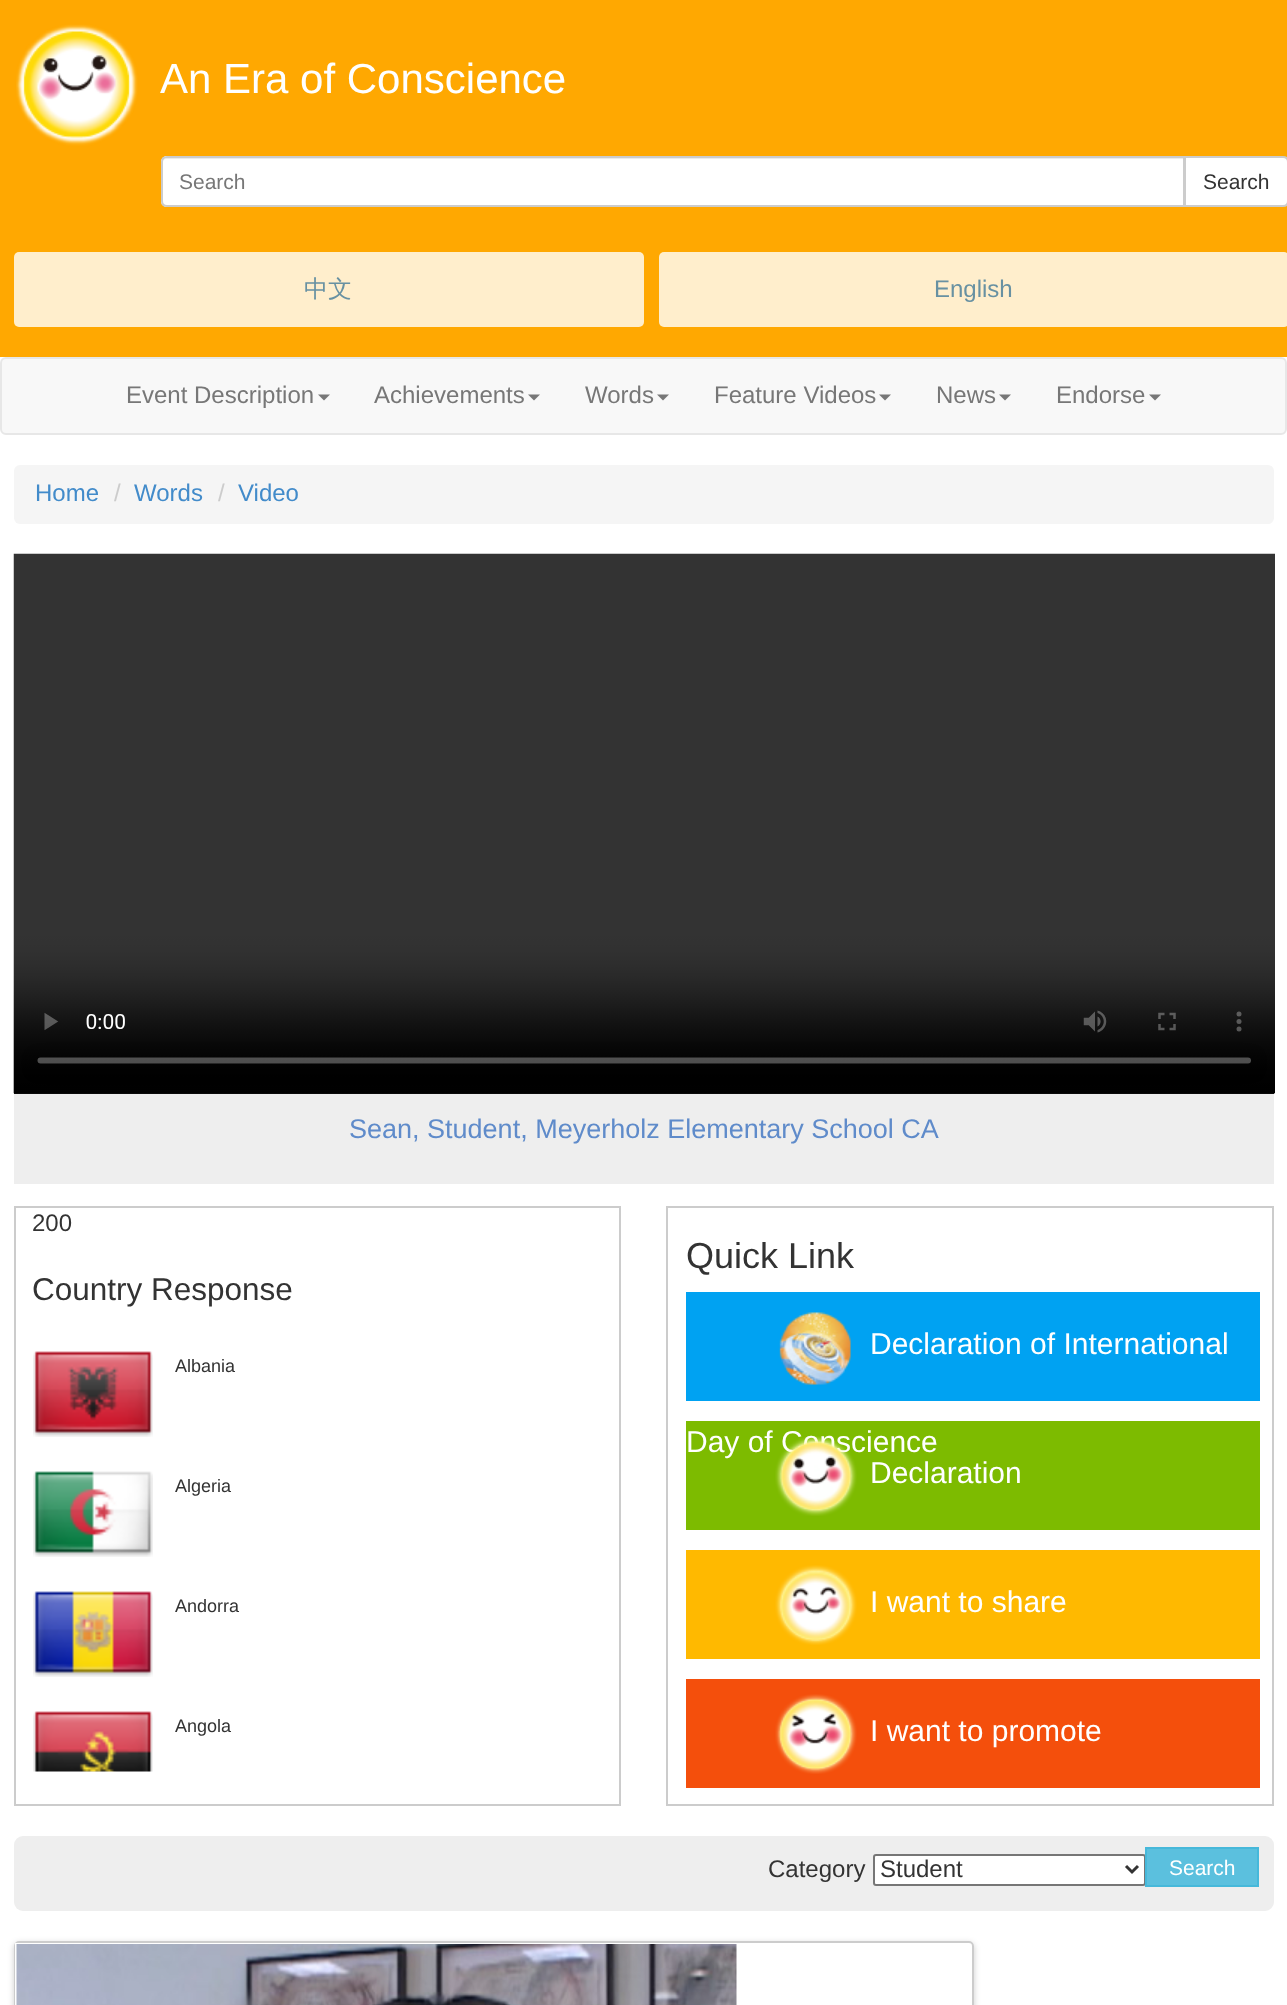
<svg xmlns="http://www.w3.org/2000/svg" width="1287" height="2005">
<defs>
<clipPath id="clip1"><path d="M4 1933h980v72h-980zm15 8h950c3 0 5 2 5 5v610c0 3-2 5-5 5h-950c-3 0-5-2-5-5v-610c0-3 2-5 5-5z" clip-rule="evenodd"/></clipPath>
</defs>
<rect width="100%" height="100%" fill="#fff"/>
<rect width="1287" height="357" fill="#ffa801"/>
<image x="16" y="24" width="122" height="122" href="media/1.png"/>
<text x="160" y="93" style="font-family:Liberation Sans;font-size:42px;fill:#fff">An Era of Conscience</text>
<path d="M1185 157h98c3 0 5 2 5 5v39c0 3-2 5-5 5h-98z" fill="#fff" stroke="#ccc" stroke-width="2"/>
<path d="M167 156h1018v51h-1018c-3.5 0-6-2.5-6-6v-39c0-3.5 2.5-6 6-6z" fill="#fff"/>
<path d="M166 159h1018v-1h-1017c-3 0-5 3-5 6c0-3 2-5 4-5z" fill="#ececec"/>
<path d="M167 157h1017v49h-1017c-3 0-5-2-5-5v-39c0-3 2-5 5-5z" fill="none" stroke="#ccc" stroke-width="2"/>
<text x="179" y="189" style="font-family:Liberation Sans;font-size:21px;fill:#777">Search</text>
<text x="1203" y="189" style="font-family:Liberation Sans;font-size:21px;fill:#333">Search</text>
<rect x="14" y="252" width="630" height="75" rx="5" fill="#fec"/>
<text x="304" y="297" style="font-family:WenQuanYi Zen Hei;font-size:24px;font-weight:500;fill:#6891a2">中文</text>
<rect x="659" y="252" width="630" height="75" rx="5" fill="#fec"/>
<text x="934" y="297" style="font-family:Liberation Sans;font-size:24px;fill:#6891a2">English</text>
<rect x="1" y="358" width="1285" height="76" rx="5" fill="#f8f8f8" stroke="#e7e7e7" stroke-width="2"/>
<text x="126" y="403" style="font-family:Liberation Sans;font-size:24px;fill:#777">Event Description</text>
<path d="M318 394.5h12l-6 6z" fill="#777"/>
<text x="374" y="403" style="font-family:Liberation Sans;font-size:24px;fill:#777">Achievements</text>
<path d="M528 394.5h12l-6 6z" fill="#777"/>
<text x="585" y="403" style="font-family:Liberation Sans;font-size:24px;fill:#777">Words</text>
<path d="M657 394.5h12l-6 6z" fill="#777"/>
<text x="714" y="403" style="font-family:Liberation Sans;font-size:24px;fill:#777">Feature Videos</text>
<path d="M879 394.5h12l-6 6z" fill="#777"/>
<text x="936" y="403" style="font-family:Liberation Sans;font-size:24px;fill:#777">News</text>
<path d="M999 394.5h12l-6 6z" fill="#777"/>
<text x="1056" y="403" style="font-family:Liberation Sans;font-size:24px;fill:#777">Endorse</text>
<path d="M1149 394.5h12l-6 6z" fill="#777"/>
<rect x="14" y="465" width="1260" height="59" rx="6" fill="#f5f5f5"/>
<text x="35" y="501" style="font-family:Liberation Sans;font-size:24px;fill:#428bca">Home</text>
<text x="114" y="501" style="font-family:Liberation Sans;font-size:24px;fill:#ccc">/</text>
<text x="134" y="501" style="font-family:Liberation Sans;font-size:24px;fill:#428bca">Words</text>
<text x="218" y="501" style="font-family:Liberation Sans;font-size:24px;fill:#ccc">/</text>
<text x="238" y="501" style="font-family:Liberation Sans;font-size:24px;fill:#428bca">Video</text>
<rect x="14" y="1094" width="1260" height="90" fill="#eee"/>
<rect x="14" y="1093" width="1260" height="1" fill="#000"/>
<image x="13" y="553" width="1262" height="541" href="media/2.png"/>
<text x="349" y="1138" style="font-family:Liberation Sans;font-size:27px;fill:#5f8bca">Sean, Student, Meyerholz Elementary School CA</text>
<rect x="15" y="1207" width="605" height="598" fill="none" stroke="#ccc" stroke-width="2"/>
<text x="32" y="1231" style="font-family:Liberation Sans;font-size:24px;fill:#333">200</text>
<text x="32" y="1300" style="font-family:Liberation Sans;font-size:31.5px;fill:#333">Country Response</text>
<image x="33" y="1351" width="120" height="86" href="media/3.png"/>
<text x="175" y="1372" style="font-family:Liberation Sans;font-size:18px;fill:#333">Albania</text>
<image x="33" y="1471" width="120" height="86" href="media/4.png"/>
<text x="175" y="1492" style="font-family:Liberation Sans;font-size:18px;fill:#333">Algeria</text>
<image x="33" y="1591" width="120" height="86" href="media/5.png"/>
<text x="175" y="1612" style="font-family:Liberation Sans;font-size:18px;fill:#333">Andorra</text>
<image x="33" y="1711" width="120" height="61" href="media/6.png"/>
<text x="175" y="1732" style="font-family:Liberation Sans;font-size:18px;fill:#333">Angola</text>
<rect x="667" y="1207" width="606" height="598" fill="none" stroke="#ccc" stroke-width="2"/>
<text x="686" y="1268" style="font-family:Liberation Sans;font-size:36px;fill:#333">Quick Link</text>
<rect x="686" y="1292" width="574" height="109" fill="#00a2f2"/>
<image x="779" y="1312" width="72" height="73" href="media/7.png"/>
<text x="870" y="1354" style="font-family:Liberation Sans;font-size:30px;fill:#fff">Declaration of International</text>
<rect x="686" y="1421" width="574" height="109" fill="#7dbb00"/>
<text x="686" y="1452" style="font-family:Liberation Sans;font-size:30px;fill:#fff">Day of Conscience</text>
<image x="775" y="1436" width="82" height="80" href="media/8.png"/>
<text x="870" y="1483" style="font-family:Liberation Sans;font-size:30px;fill:#fff">Declaration</text>
<rect x="686" y="1550" width="574" height="109" fill="#ffb900"/>
<image x="775" y="1565" width="82" height="80" href="media/9.png"/>
<text x="870" y="1612" style="font-family:Liberation Sans;font-size:30px;fill:#fff">I want to share</text>
<rect x="686" y="1679" width="574" height="109" fill="#f44f0c"/>
<image x="775" y="1694" width="82" height="80" href="media/10.png"/>
<text x="870" y="1741" style="font-family:Liberation Sans;font-size:30px;fill:#fff">I want to promote</text>
<rect x="14" y="1836" width="1260" height="75" rx="9" fill="#eee"/>
<text x="768" y="1877" style="font-family:Liberation Sans;font-size:24px;fill:#333">Category</text>
<rect x="874" y="1855" width="271" height="30" rx="2" fill="#fff" stroke="#767676" stroke-width="2"/>
<path d="M1126 1866l6 6l6-6" fill="none" stroke="#333" stroke-width="3"/>
<text x="880" y="1877" style="font-family:Liberation Sans;font-size:24px;fill:#333">Student</text>
<rect x="1146" y="1848" width="112" height="38" fill="#5bc0de" stroke="#46b8da" stroke-width="2"/>
<text x="1169" y="1875" style="font-family:Liberation Sans;font-size:21px;fill:#fff">Search</text>
<g clip-path="url(#clip1)">
<rect x="14" y="1943" width="960" height="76" rx="5" fill="#00000033" filter="blur(3px)"/>
</g>
<rect x="15" y="1942" width="958" height="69" rx="4" fill="none" stroke="#ccc" stroke-width="2"/>
<rect x="16" y="1944" width="721" height="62" fill="none" stroke="#fff" stroke-width="2"/>
<image x="16" y="1944" width="721" height="61" href="media/11.png"/>
</svg>
